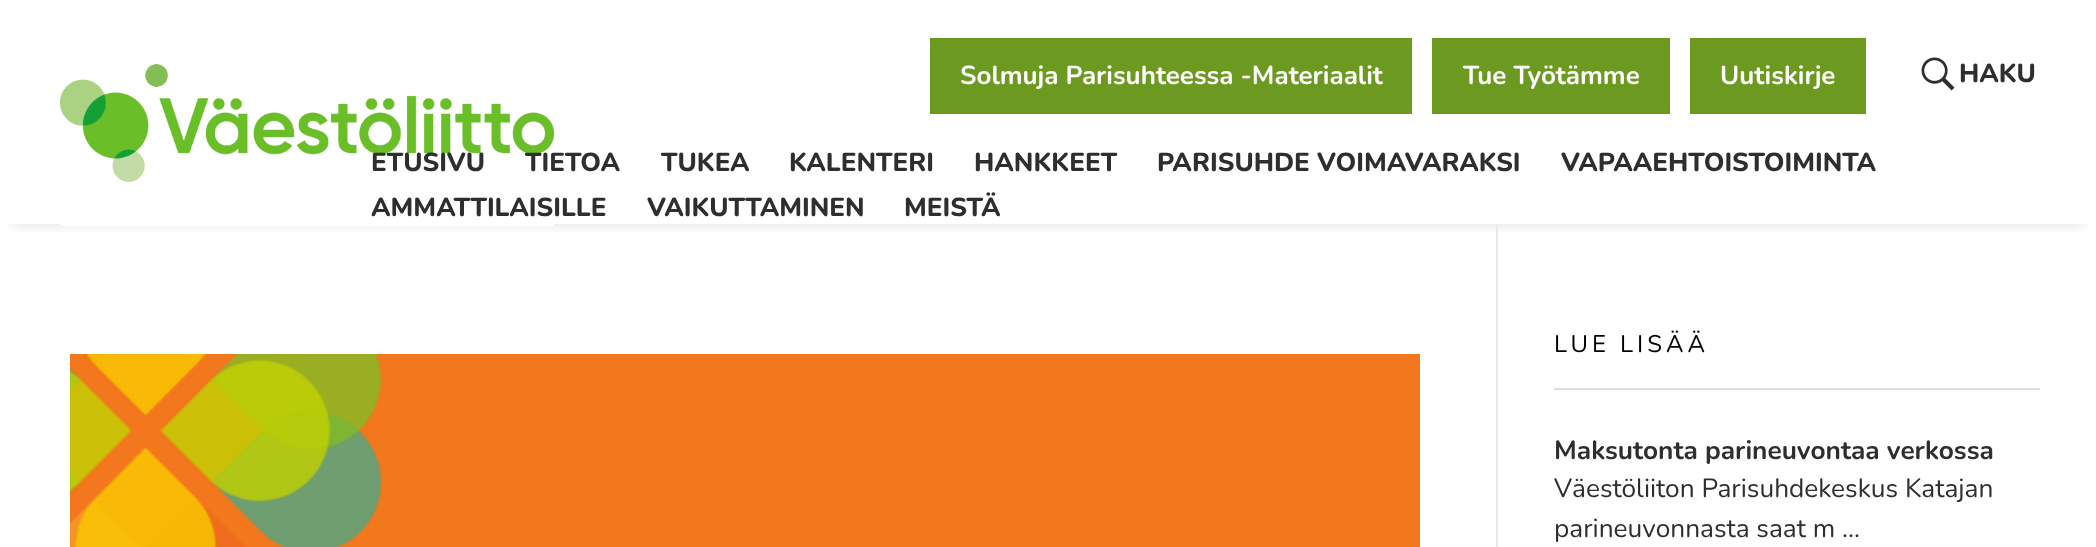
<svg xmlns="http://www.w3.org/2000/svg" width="2096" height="547">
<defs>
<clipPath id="clip1"><rect x="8" y="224" width="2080" height="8"/></clipPath>
</defs>
<rect width="100%" height="100%" fill="#fff"/>
<g clip-path="url(#clip1)">
<rect x="12" y="150" width="2072" height="70" fill="#00000033" filter="blur(9px)"/>
</g>
<image x="60" y="64" width="494" height="162" href="media/1.png"/>
<rect x="930" y="38" width="482" height="76" fill="#6c9a21"/>
<text x="960" y="84" style="font-family:Nunito;font-size:26px;font-weight:bold;fill:#fff">Solmuja Parisuhteessa -Materiaalit</text>
<rect x="1432" y="38" width="238" height="76" fill="#6c9a21"/>
<text x="1463" y="84" style="font-family:Nunito;font-size:26px;font-weight:bold;fill:#fff">Tue Työtämme</text>
<rect x="1690" y="38" width="176" height="76" fill="#6c9a21"/>
<text x="1720" y="84" style="font-family:Nunito;font-size:26px;font-weight:bold;fill:#fff">Uutiskirje</text>
<image x="1921" y="57" width="34" height="34" href="media/2.png"/>
<text x="1959" y="82" style="font-family:Nunito;font-size:26px;font-weight:800;fill:#2e2e2e">HAKU</text>
<text x="371" y="171" style="font-family:Nunito;font-size:26px;font-weight:800;fill:#2e2e2e">ETUSIVU</text>
<text x="525" y="171" style="font-family:Nunito;font-size:26px;font-weight:800;fill:#2e2e2e">TIETOA</text>
<text x="661" y="171" style="font-family:Nunito;font-size:26px;font-weight:800;fill:#2e2e2e">TUKEA</text>
<text x="789" y="171" style="font-family:Nunito;font-size:26px;font-weight:800;fill:#2e2e2e">KALENTERI</text>
<text x="974" y="171" style="font-family:Nunito;font-size:26px;font-weight:800;fill:#2e2e2e">HANKKEET</text>
<text x="1157" y="171" style="font-family:Nunito;font-size:26px;font-weight:800;fill:#2e2e2e">PARISUHDE VOIMAVARAKSI</text>
<text x="1561" y="171" style="font-family:Nunito;font-size:26px;font-weight:800;fill:#2e2e2e">VAPAAEHTOISTOIMINTA</text>
<text x="371" y="216" style="font-family:Nunito;font-size:26px;font-weight:800;fill:#2e2e2e">AMMATTILAISILLE</text>
<text x="647" y="216" style="font-family:Nunito;font-size:26px;font-weight:800;fill:#2e2e2e">VAIKUTTAMINEN</text>
<text x="904" y="216" style="font-family:Nunito;font-size:26px;font-weight:800;fill:#2e2e2e">MEISTÄ</text>
<image x="70" y="354" width="1350" height="193" href="media/3.png"/>
<rect x="1496" y="224" width="2" height="323" fill="#eaeaea"/>
<rect x="1554" y="388" width="486" height="2" fill="#dedede"/>
<text x="1554" y="352" style="font-family:Nunito;font-size:24px;letter-spacing:4px;fill:#000">LUE LISÄÄ</text>
<text x="1554" y="459" style="font-family:Nunito;font-size:26.25px;font-weight:bold;fill:#2e2e2e">Maksutonta parineuvontaa verkossa</text>
<text x="1554" y="497" style="font-family:Nunito;font-size:26.25px;fill:#2e2e2e">Väestöliiton Parisuhdekeskus Katajan</text>
<text x="1554" y="537" style="font-family:Nunito;font-size:26.25px;fill:#2e2e2e">parineuvonnasta saat m ...</text>
</svg>
